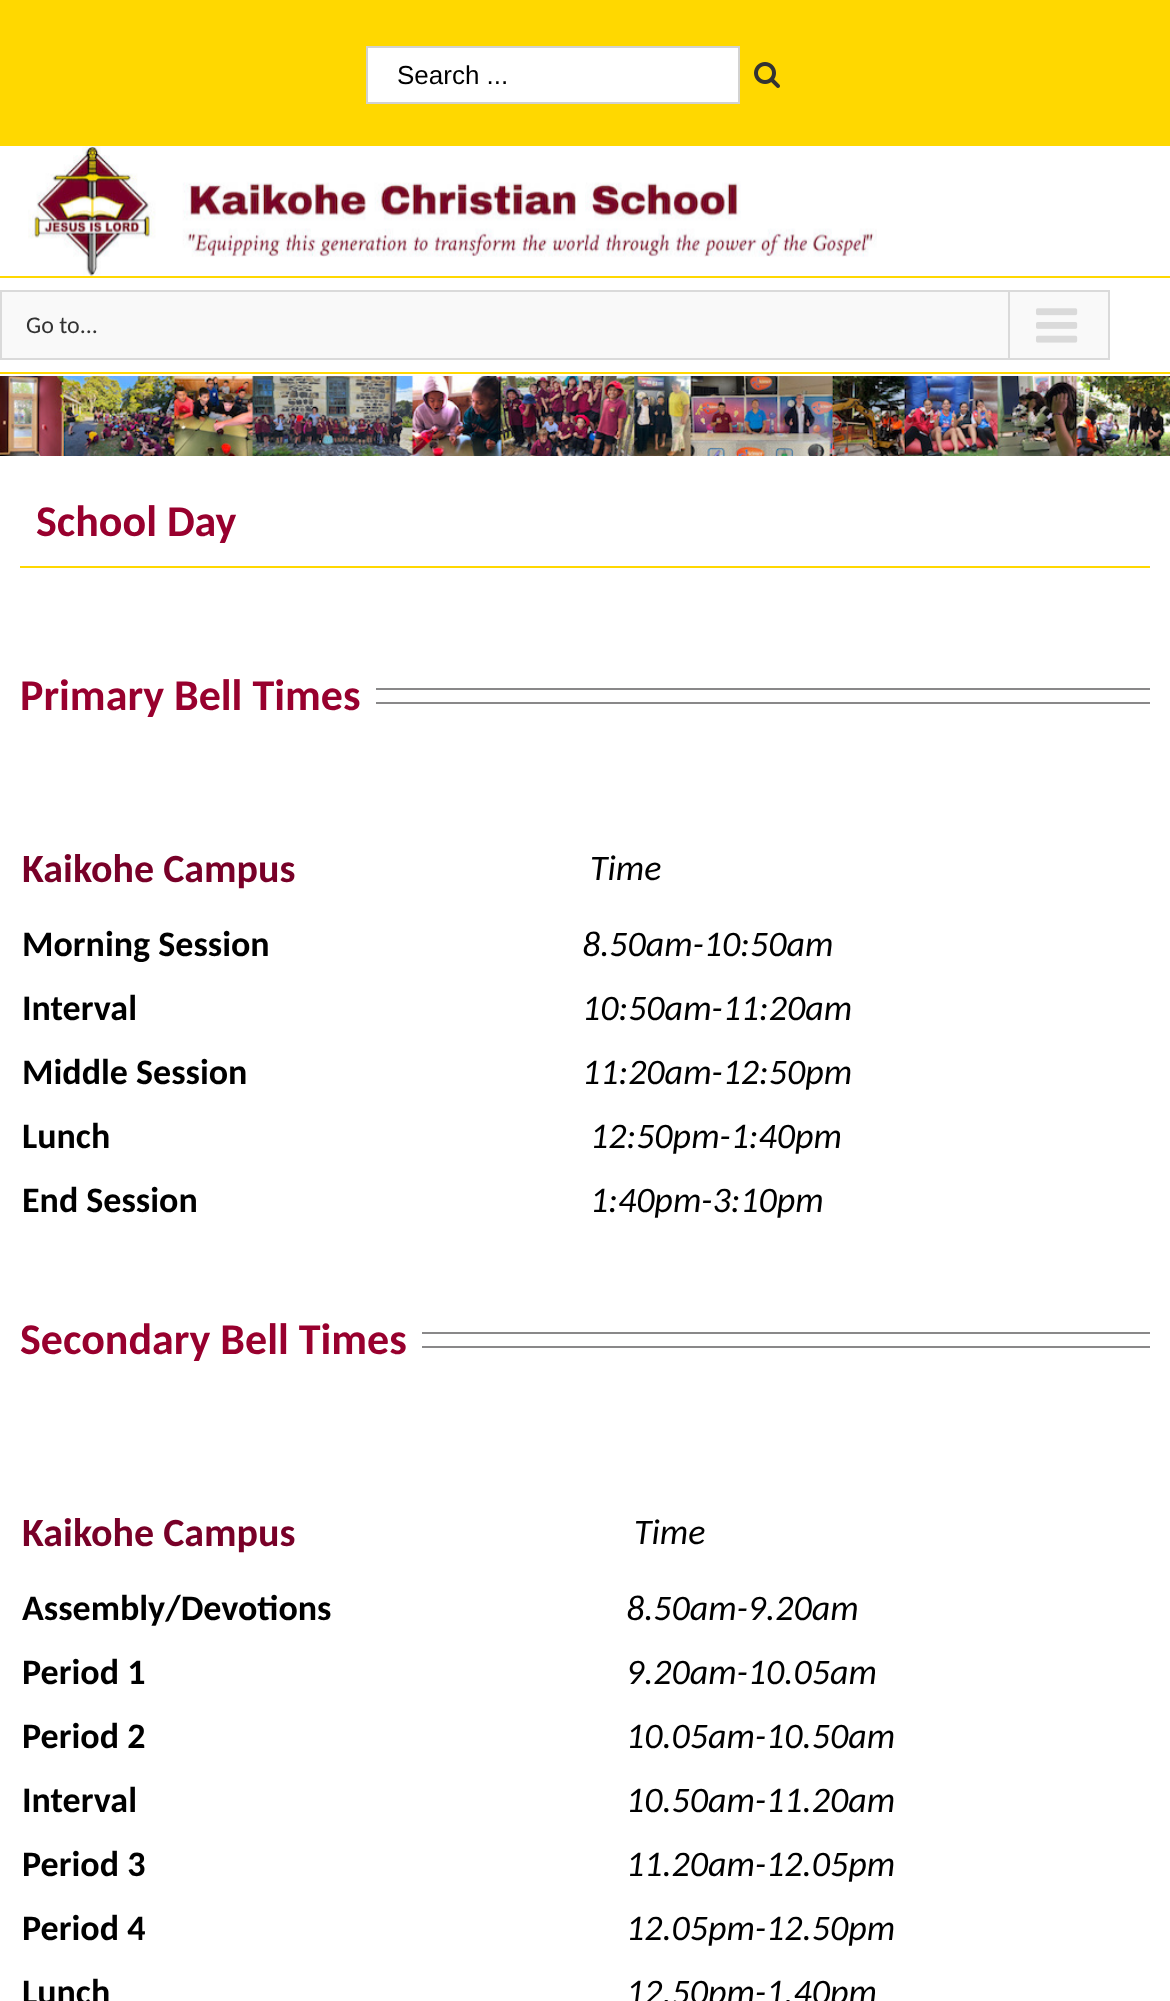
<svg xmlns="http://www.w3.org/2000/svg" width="1170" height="2001">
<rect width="100%" height="100%" fill="#fff"/>
<rect width="1170" height="146" fill="#ffd800"/>
<rect x="367" y="47" width="372" height="56" fill="#fff" stroke="#d2d2d2" stroke-width="2"/>
<text x="397" y="84" style="font-family:Liberation Sans;font-size:26px;fill:#000">Search ...</text>
<image x="754" y="62" width="26" height="26" href="media/1.png"/>
<rect y="276" width="1170" height="2" fill="#ffd800"/>
<image x="28" y="146" width="849" height="130" href="media/2.png"/>
<rect y="372" width="1170" height="2" fill="#ffd800"/>
<rect x="1" y="291" width="1108" height="68" fill="#f9f9f9" stroke="#dadada" stroke-width="2"/>
<text x="26" y="333" style="font-family:Carlito;font-size:24px;fill:#333">Go to...</text>
<rect x="1008" y="292" width="2" height="66" fill="#dadada"/>
<image x="1036" y="308" width="42" height="35" href="media/3.png"/>
<image x="0" y="376" width="1170" height="80" href="media/4.png"/>
<rect x="20" y="566" width="1130" height="2" fill="#ffd800"/>
<text x="36" y="536" style="font-family:Carlito;font-size:44px;font-weight:bold;fill:#98002e">School Day</text>
<text x="20" y="710" style="font-family:Carlito;font-size:44px;font-weight:bold;fill:#98002e">Primary Bell Times</text>
<rect x="376" y="688" width="774" height="2" fill="#898889"/>
<rect x="376" y="702" width="774" height="2" fill="#898889"/>
<text x="22" y="882" style="font-family:Carlito;font-size:40px;font-weight:bold;fill:#780028">Kaikohe Campus</text>
<text x="590" y="880" style="font-family:Carlito;font-size:36px;font-style:italic;fill:#000">Time</text>
<text x="22" y="956" style="font-family:Carlito;font-size:36px;font-weight:bold;fill:#000">Morning Session</text>
<text x="582" y="956" style="font-family:Carlito;font-size:36px;font-style:italic;fill:#000">8.50am-10:50am</text>
<text x="22" y="1020" style="font-family:Carlito;font-size:36px;font-weight:bold;fill:#000">Interval</text>
<text x="582" y="1020" style="font-family:Carlito;font-size:36px;font-style:italic;fill:#000">10:50am-11:20am</text>
<text x="22" y="1084" style="font-family:Carlito;font-size:36px;font-weight:bold;fill:#000">Middle Session</text>
<text x="582" y="1084" style="font-family:Carlito;font-size:36px;font-style:italic;fill:#000">11:20am-12:50pm</text>
<text x="22" y="1148" style="font-family:Carlito;font-size:36px;font-weight:bold;fill:#000">Lunch</text>
<text x="590" y="1148" style="font-family:Carlito;font-size:36px;font-style:italic;fill:#000">12:50pm-1:40pm</text>
<text x="22" y="1212" style="font-family:Carlito;font-size:36px;font-weight:bold;fill:#000">End Session</text>
<text x="590" y="1212" style="font-family:Carlito;font-size:36px;font-style:italic;fill:#000">1:40pm-3:10pm</text>
<text x="20" y="1354" style="font-family:Carlito;font-size:44px;font-weight:bold;fill:#98002e">Secondary Bell Times</text>
<rect x="422" y="1332" width="728" height="2" fill="#898889"/>
<rect x="422" y="1346" width="728" height="2" fill="#898889"/>
<text x="22" y="1546" style="font-family:Carlito;font-size:40px;font-weight:bold;fill:#780028">Kaikohe Campus</text>
<text x="634" y="1544" style="font-family:Carlito;font-size:36px;font-style:italic;fill:#000">Time</text>
<text x="22" y="1620" style="font-family:Carlito;font-size:36px;font-weight:bold;fill:#000">Assembly/Devotions</text>
<text x="626" y="1620" style="font-family:Carlito;font-size:36px;font-style:italic;fill:#000">8.50am-9.20am</text>
<text x="22" y="1684" style="font-family:Carlito;font-size:36px;font-weight:bold;fill:#000">Period 1</text>
<text x="626" y="1684" style="font-family:Carlito;font-size:36px;font-style:italic;fill:#000">9.20am-10.05am</text>
<text x="22" y="1748" style="font-family:Carlito;font-size:36px;font-weight:bold;fill:#000">Period 2</text>
<text x="626" y="1748" style="font-family:Carlito;font-size:36px;font-style:italic;fill:#000">10.05am-10.50am</text>
<text x="22" y="1812" style="font-family:Carlito;font-size:36px;font-weight:bold;fill:#000">Interval</text>
<text x="626" y="1812" style="font-family:Carlito;font-size:36px;font-style:italic;fill:#000">10.50am-11.20am</text>
<text x="22" y="1876" style="font-family:Carlito;font-size:36px;font-weight:bold;fill:#000">Period 3</text>
<text x="626" y="1876" style="font-family:Carlito;font-size:36px;font-style:italic;fill:#000">11.20am-12.05pm</text>
<text x="22" y="1940" style="font-family:Carlito;font-size:36px;font-weight:bold;fill:#000">Period 4</text>
<text x="626" y="1940" style="font-family:Carlito;font-size:36px;font-style:italic;fill:#000">12.05pm-12.50pm</text>
<text x="22" y="2004" style="font-family:Carlito;font-size:36px;font-weight:bold;fill:#000">Lunch</text>
<text x="626" y="2004" style="font-family:Carlito;font-size:36px;font-style:italic;fill:#000">12.50pm-1.40pm</text>
</svg>
